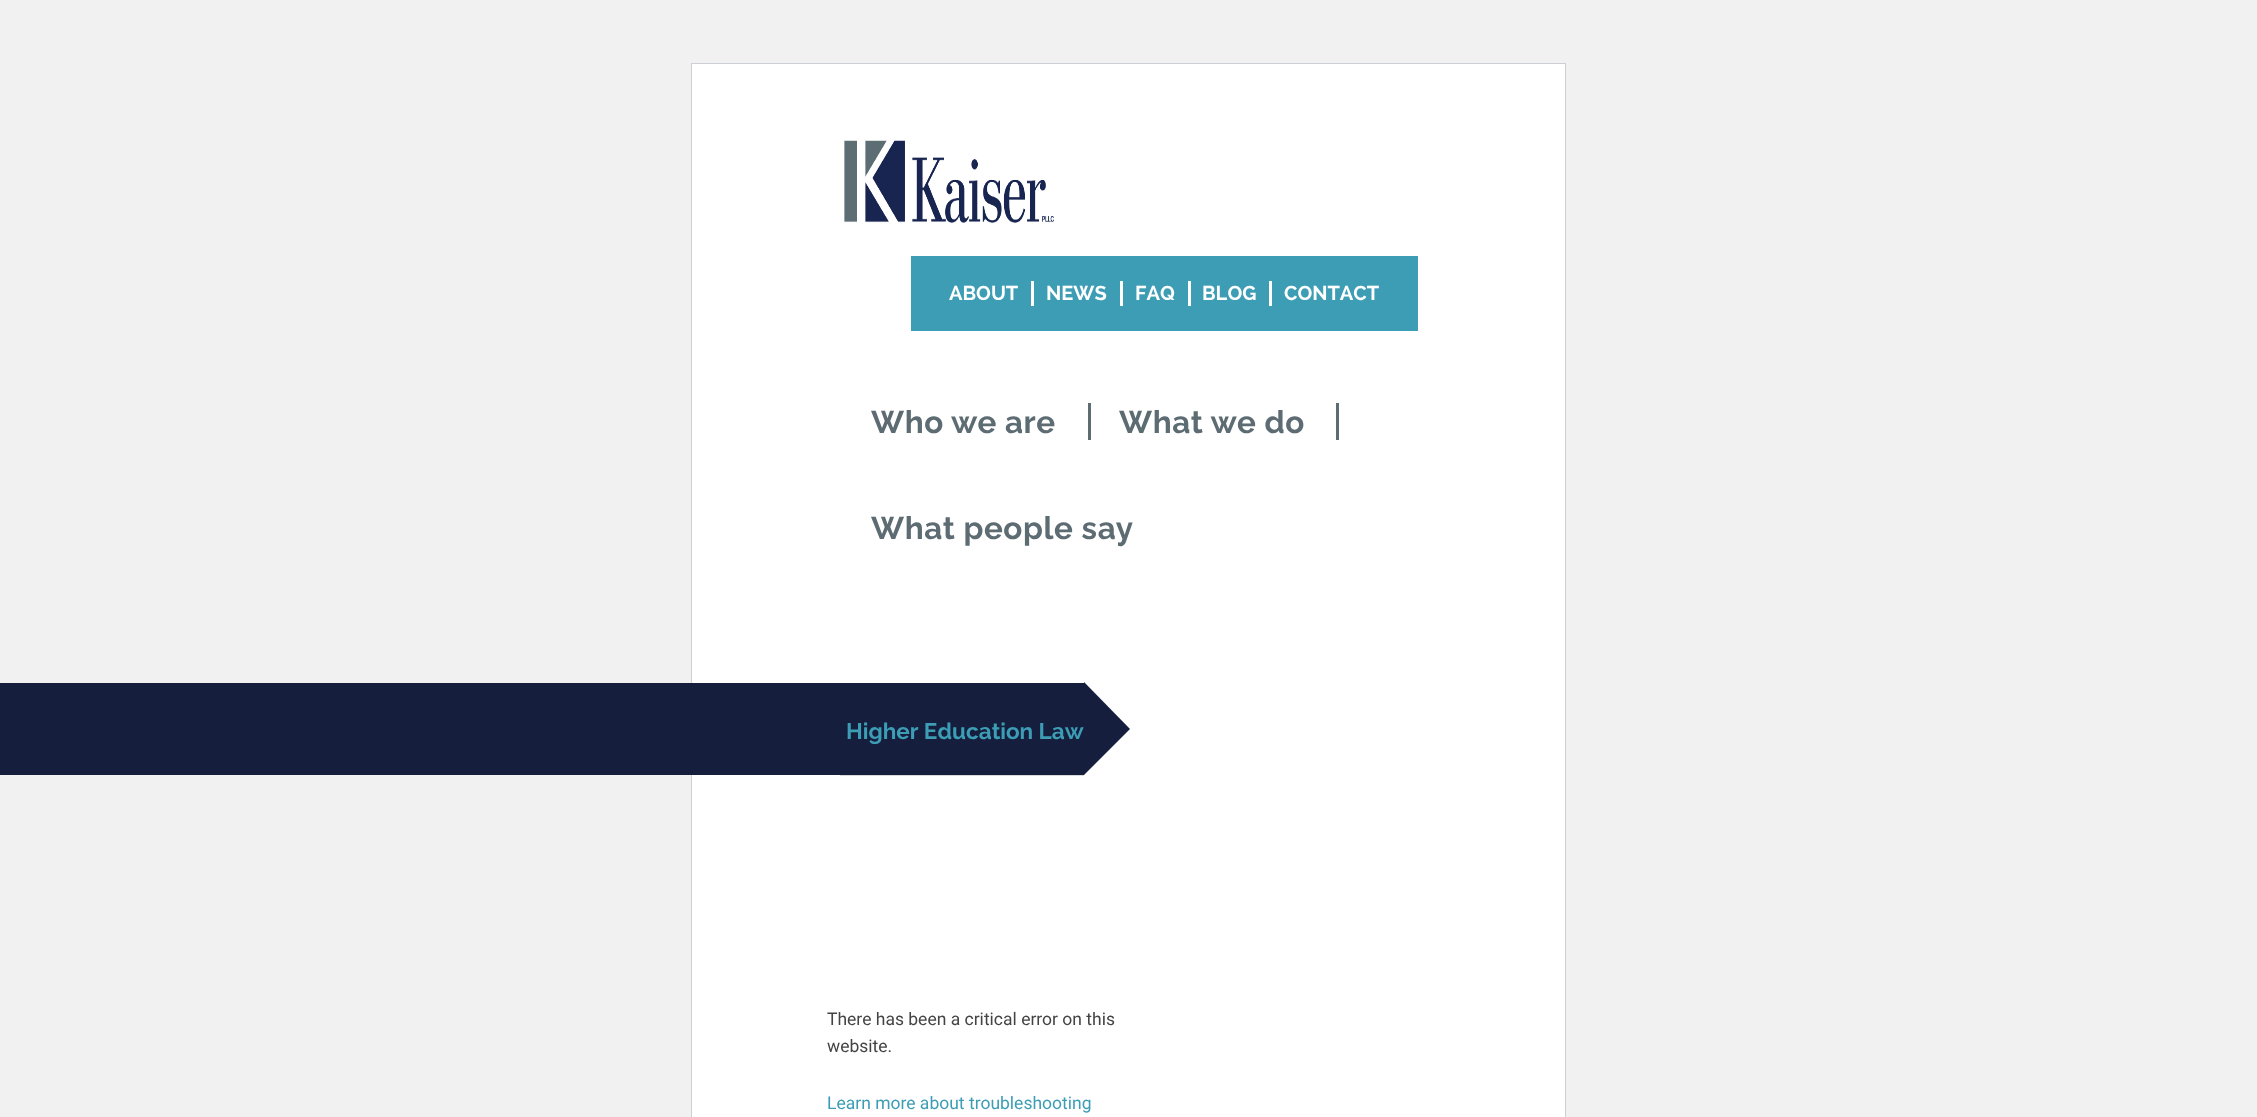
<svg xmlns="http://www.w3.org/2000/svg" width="2257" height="1117">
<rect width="100%" height="100%" fill="#f1f1f1"/>
<rect x="691.5" y="63.5" width="874" height="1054" fill="#fff" stroke="#ccd0d4"/>
<image x="844" y="140" width="210" height="83" href="media/1.png"/>
<rect x="911" y="256" width="507" height="75" fill="#3c9db5"/>
<text x="949" y="300" style="font-family:Raleway;font-size:20px;font-weight:bold;fill:#fff">ABOUT</text>
<rect x="1031" y="281" width="3" height="25" fill="#fff"/>
<text x="1046" y="300" style="font-family:Raleway;font-size:20px;font-weight:bold;fill:#fff">NEWS</text>
<rect x="1120" y="281" width="3" height="25" fill="#fff"/>
<text x="1135" y="300" style="font-family:Raleway;font-size:20px;font-weight:bold;fill:#fff">FAQ</text>
<rect x="1188" y="281" width="3" height="25" fill="#fff"/>
<text x="1202" y="300" style="font-family:Raleway;font-size:20px;font-weight:bold;fill:#fff">BLOG</text>
<rect x="1269" y="281" width="3" height="25" fill="#fff"/>
<text x="1284" y="300" style="font-family:Raleway;font-size:20px;font-weight:bold;fill:#fff">CONTACT</text>
<text x="871" y="433" style="font-family:'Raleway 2';font-size:31.4px;font-weight:bold;letter-spacing:0.6px;fill:#5d6c73">Who we are</text>
<rect x="1088" y="403" width="3" height="37" fill="#5d6c73"/>
<text x="1119" y="433" style="font-family:'Raleway 2';font-size:31.4px;font-weight:bold;letter-spacing:0.6px;fill:#5d6c73">What we do</text>
<rect x="1336" y="403" width="3" height="37" fill="#5d6c73"/>
<text x="871" y="539" style="font-family:'Raleway 2';font-size:31.4px;font-weight:bold;letter-spacing:0.6px;fill:#5d6c73">What people say</text>
<rect y="683" width="1084" height="92" fill="#151e3c"/>
<rect x="840" y="775" width="244" height="1" fill="#dadada"/>
<text x="846" y="739" style="font-family:Raleway;font-size:22.5px;font-weight:bold;fill:#3c9db5">Higher Education Law</text>
<path d="M1084 775v-93l46 47z" fill="#151e3c"/>
<text x="827" y="1025" style="font-family:Roboto;font-size:17.5px;fill:#444">There has been a critical error on this</text>
<text x="827" y="1052" style="font-family:Roboto;font-size:17.5px;fill:#444">website.</text>
<text x="827" y="1109" style="font-family:Roboto;font-size:17.5px;fill:#3c9db5">Learn more about troubleshooting</text>
</svg>
